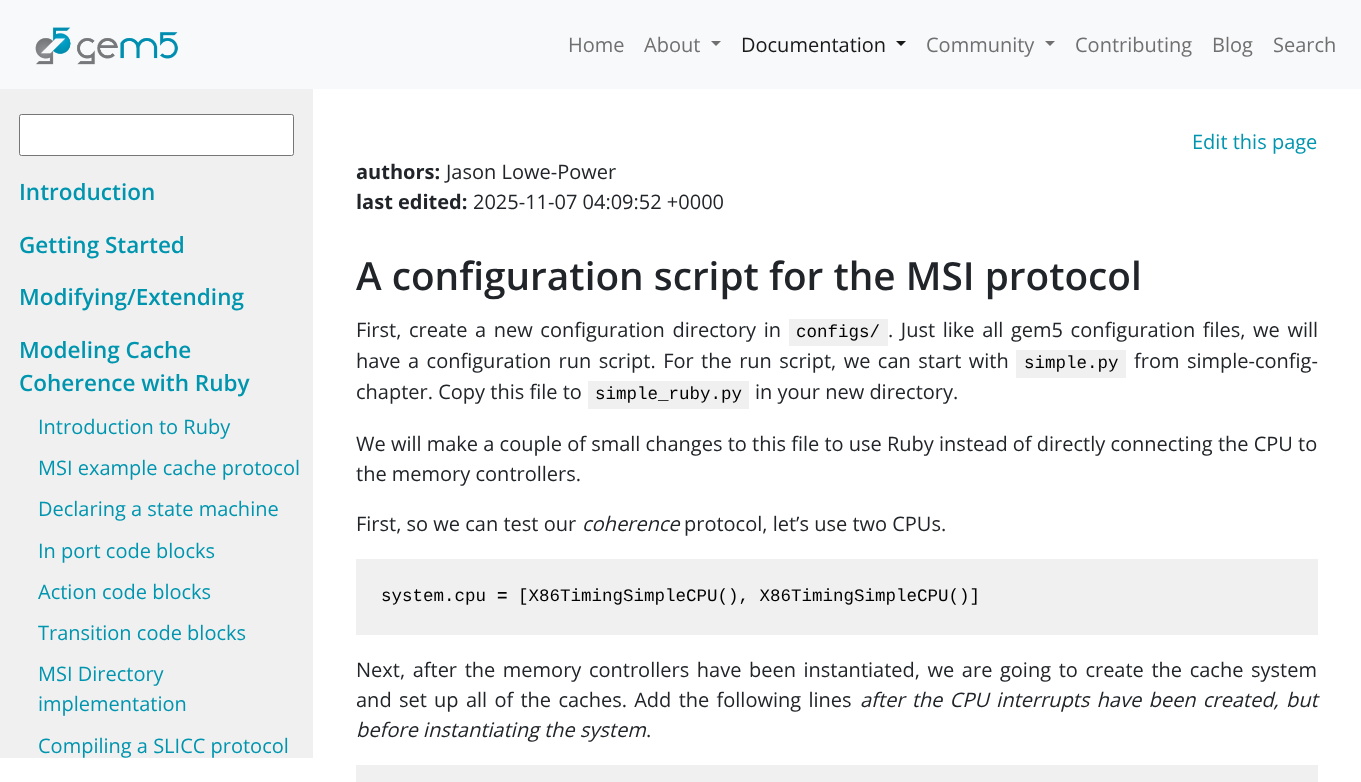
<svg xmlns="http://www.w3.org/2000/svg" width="1361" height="782">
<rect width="100%" height="100%" fill="#fff"/>
<rect width="1361" height="89" fill="#f8f9fa"/>
<text x="568" y="52" style="font-family:Open Sans;font-size:20px;fill:#707071">Home</text>
<text x="644" y="52" style="font-family:Open Sans;font-size:20px;fill:#707071">About</text>
<path d="M711 41h10l-5 5z" fill="#707071"/>
<text x="741" y="52" style="font-family:Open Sans;font-size:20px;fill:#191919">Documentation</text>
<path d="M896 41h10l-5 5z" fill="#191919"/>
<text x="926" y="52" style="font-family:Open Sans;font-size:20px;fill:#707071">Community</text>
<path d="M1045 41h10l-5 5z" fill="#707071"/>
<text x="1075" y="52" style="font-family:Open Sans;font-size:20px;fill:#707071">Contributing</text>
<text x="1212" y="52" style="font-family:Open Sans;font-size:20px;fill:#707071">Blog</text>
<text x="1273" y="52" style="font-family:Open Sans;font-size:20px;fill:#707071">Search</text>
<rect y="89" width="313" height="669" fill="#f0f0f0"/>
<image x="35" y="27" width="143" height="38" href="media/1.png"/>
<rect x="19.5" y="114.5" width="274" height="41" rx="2" fill="#fff" stroke="#767676"/>
<text x="1192" y="149" style="font-family:Open Sans;font-size:20px;fill:#0095af">Edit this page</text>
<text x="356" y="179" style="font-family:Open Sans;font-size:20px;font-weight:bold;fill:#212529">authors:</text>
<text x="446" y="179" style="font-family:Open Sans;font-size:20px;fill:#212529">Jason Lowe-Power</text>
<text x="356" y="209" style="font-family:Open Sans;font-size:20px;font-weight:bold;fill:#212529">last edited:</text>
<text x="473" y="209" style="font-family:Open Sans;font-size:20px;fill:#212529">2025-11-07 04:09:52 +0000</text>
<text x="356" y="290" style="font-family:Open Sans;font-size:38.75px;font-weight:600;fill:#212529">A configuration script for the MSI protocol</text>
<text x="356" y="337" word-spacing="2.4" style="font-family:Open Sans;font-size:20px;fill:#212529">First, create a new configuration directory in</text>
<rect x="789" y="319" width="99" height="27" fill="#f0f0f0"/>
<text x="796" y="337" style="font-family:Liberation Mono;font-size:17.5px;fill:#000">configs/</text>
<text x="888" y="337" word-spacing="2.4" style="font-family:Open Sans;font-size:20px;fill:#212529">. Just like all gem5 configuration files, we will</text>
<text x="356" y="368" word-spacing="2.25" style="font-family:Open Sans;font-size:20px;fill:#212529">have a configuration run script. For the run script, we can start with</text>
<rect x="1016" y="350" width="110" height="28" fill="#f0f0f0"/>
<text x="1024" y="368" style="font-family:Liberation Mono;font-size:17.5px;fill:#000">simple.py</text>
<text x="1134" y="368" word-spacing="2.25" style="font-family:Open Sans;font-size:20px;fill:#212529">from simple-config-</text>
<text x="356" y="399" style="font-family:Open Sans;font-size:20px;fill:#212529">chapter. Copy this file to</text>
<rect x="588" y="381" width="161" height="28" fill="#f0f0f0"/>
<text x="595" y="399" style="font-family:Liberation Mono;font-size:17.5px;fill:#000">simple_ruby.py</text>
<text x="755" y="399" style="font-family:Open Sans;font-size:20px;fill:#212529">in your new directory.</text>
<text x="356" y="451" style="font-family:Open Sans;font-size:20px;fill:#212529">We will make a couple of small changes to this file to use Ruby instead of directly connecting the CPU to</text>
<text x="356" y="481" style="font-family:Open Sans;font-size:20px;fill:#212529">the memory controllers.</text>
<text x="356" y="531" style="font-family:Open Sans;font-size:20px;fill:#212529">First, so we can test our</text>
<text x="582" y="531" style="font-family:Open Sans;font-size:20px;font-style:italic;fill:#212529">coherence</text>
<text x="684" y="531" style="font-family:Open Sans;font-size:20px;fill:#212529">protocol, let’s use two CPUs.</text>
<rect x="356" y="559" width="962" height="76" fill="#f0f0f0"/>
<text x="381" y="601" style="font-family:Liberation Mono;font-size:17.5px;fill:#000">system.cpu</text>
<text x="497" y="601" style="font-family:Liberation Mono;font-size:17.5px;font-weight:bold;fill:#000">=</text>
<text x="518" y="601" style="font-family:Liberation Mono;font-size:17.5px;fill:#000">[X86TimingSimpleCPU(), X86TimingSimpleCPU()]</text>
<text x="356" y="677" word-spacing="2.4" style="font-family:Open Sans;font-size:20px;fill:#212529">Next, after the memory controllers have been instantiated, we are going to create the cache system</text>
<text x="356" y="707" word-spacing="2.1" style="font-family:Open Sans;font-size:20px;fill:#212529">and set up all of the caches. Add the following lines</text>
<text x="860" y="707" word-spacing="2.1" style="font-family:Open Sans;font-size:20px;font-style:italic;fill:#212529">after the CPU interrupts have been created, but</text>
<text x="356" y="737" style="font-family:Open Sans;font-size:20px;font-style:italic;fill:#212529">before instantiating the system</text>
<text x="646" y="737" style="font-family:Open Sans;font-size:20px;fill:#212529">.</text>
<rect x="356" y="765" width="962" height="17" fill="#f0f0f0"/>
<text x="19" y="200" style="font-family:Open Sans;font-size:22.5px;font-weight:600;fill:#0095af">Introduction</text>
<text x="19" y="253" style="font-family:Open Sans;font-size:22.5px;font-weight:600;fill:#0095af">Getting Started</text>
<text x="19" y="305" style="font-family:Open Sans;font-size:22.5px;font-weight:600;fill:#0095af">Modifying/Extending</text>
<text x="19" y="358" style="font-family:Open Sans;font-size:22.5px;font-weight:600;fill:#0095af">Modeling Cache</text>
<text x="19" y="391" style="font-family:Open Sans;font-size:22.5px;font-weight:600;fill:#0095af">Coherence with Ruby</text>
<text x="38" y="434" style="font-family:Open Sans;font-size:20px;fill:#0095af">Introduction to Ruby</text>
<text x="38" y="475" style="font-family:Open Sans;font-size:20px;fill:#0095af">MSI example cache protocol</text>
<text x="38" y="516" style="font-family:Open Sans;font-size:20px;fill:#0095af">Declaring a state machine</text>
<text x="38" y="558" style="font-family:Open Sans;font-size:20px;fill:#0095af">In port code blocks</text>
<text x="38" y="599" style="font-family:Open Sans;font-size:20px;fill:#0095af">Action code blocks</text>
<text x="38" y="640" style="font-family:Open Sans;font-size:20px;fill:#0095af">Transition code blocks</text>
<text x="38" y="681" style="font-family:Open Sans;font-size:20px;fill:#0095af">MSI Directory</text>
<text x="38" y="711" style="font-family:Open Sans;font-size:20px;fill:#0095af">implementation</text>
<text x="38" y="753" style="font-family:Open Sans;font-size:20px;fill:#0095af">Compiling a SLICC protocol</text>
</svg>
